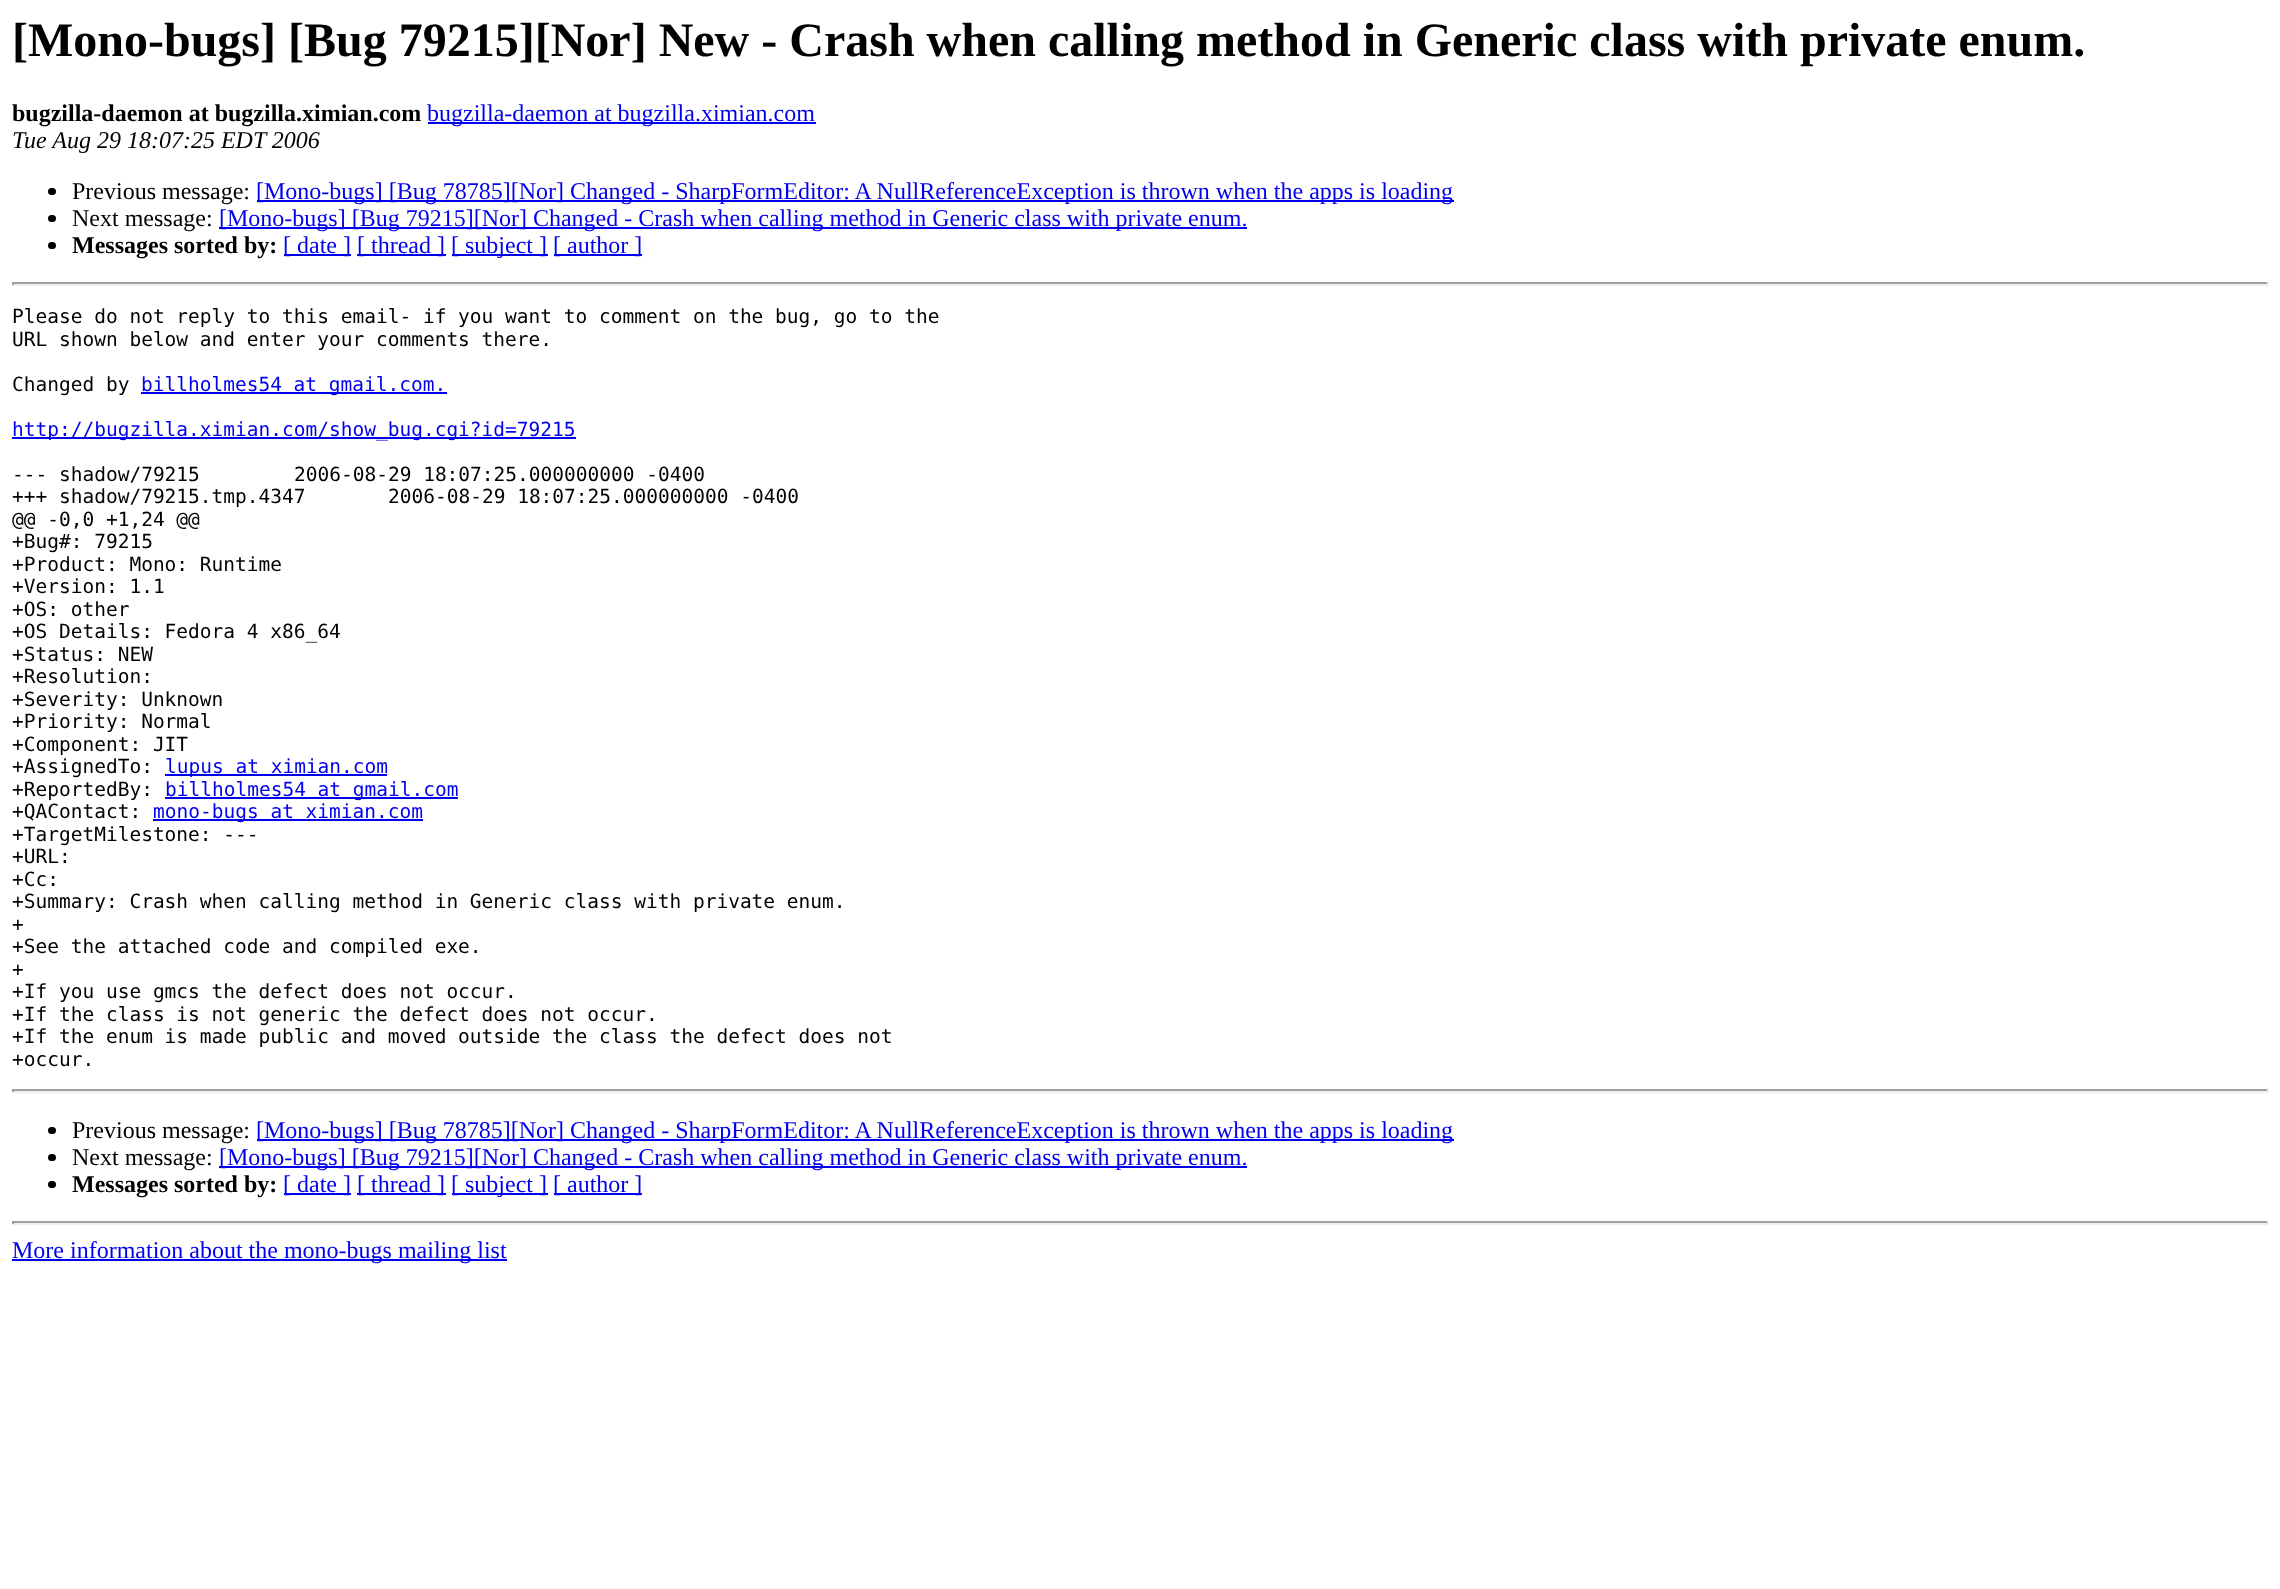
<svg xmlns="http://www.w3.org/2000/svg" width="2280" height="1589">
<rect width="100%" height="100%" fill="#fff"/>
<text x="12" y="56" style="font-family:Liberation Serif;font-size:48px;font-weight:bold;fill:#000">[Mono-bugs] [Bug 79215][Nor] New - Crash when calling method in Generic class with private enum.</text>
<text x="12" y="121" style="font-family:Liberation Serif;font-size:24px;font-weight:bold;fill:#000">bugzilla-daemon at bugzilla.ximian.com</text>
<rect x="428" y="122" width="388" height="2" fill="#00e"/>
<text x="427" y="121" style="font-family:Liberation Serif;font-size:24px;fill:#00e">bugzilla-daemon at bugzilla.ximian.com</text>
<text x="12" y="148" style="font-family:Liberation Serif;font-size:24px;font-style:italic;fill:#000">Tue Aug 29 18:07:25 EDT 2006</text>
<rect x="48" y="188" width="8" height="7" rx="3.5" fill="#000"/>
<text x="72" y="199" style="font-family:Liberation Serif;font-size:24px;fill:#000">Previous message:</text>
<rect x="257" y="200" width="1197" height="2" fill="#00e"/>
<text x="256" y="199" style="font-family:Liberation Serif;font-size:24px;fill:#00e">[Mono-bugs] [Bug 78785][Nor] Changed - SharpFormEditor: A NullReferenceException is thrown when the apps is loading</text>
<rect x="48" y="215" width="8" height="7" rx="3.5" fill="#000"/>
<text x="72" y="226" style="font-family:Liberation Serif;font-size:24px;fill:#000">Next message:</text>
<rect x="219" y="227" width="1028" height="2" fill="#00e"/>
<text x="219" y="226" style="font-family:Liberation Serif;font-size:24px;fill:#00e">[Mono-bugs] [Bug 79215][Nor] Changed - Crash when calling method in Generic class with private enum.</text>
<rect x="48" y="242" width="8" height="7" rx="3.5" fill="#000"/>
<text x="72" y="253" style="font-family:Liberation Serif;font-size:24px;font-weight:bold;fill:#000">Messages sorted by:</text>
<rect x="284" y="254" width="67" height="2" fill="#00e"/>
<text x="283" y="253" style="font-family:Liberation Serif;font-size:24px;fill:#00e">[ date ]</text>
<rect x="357" y="254" width="89" height="2" fill="#00e"/>
<text x="357" y="253" style="font-family:Liberation Serif;font-size:24px;fill:#00e">[ thread ]</text>
<rect x="452" y="254" width="96" height="2" fill="#00e"/>
<text x="451" y="253" style="font-family:Liberation Serif;font-size:24px;fill:#00e">[ subject ]</text>
<rect x="554" y="254" width="88" height="2" fill="#00e"/>
<text x="553" y="253" style="font-family:Liberation Serif;font-size:24px;fill:#00e">[ author ]</text>
<rect x="12" y="282" width="2256" height="2" fill="#9f9f9f"/>
<rect x="2267" y="282" width="2" height="3" fill="#eee"/>
<rect x="12" y="284" width="2256" height="2" fill="#eee"/>
<rect x="12" y="282" width="2" height="3" fill="#9f9f9f"/>
<text x="12" y="323" style="font-family:DejaVu Sans Mono;font-size:19.5px;fill:#000">Please do not reply to this email- if you want to comment on the bug, go to the</text>
<text x="12" y="346" style="font-family:DejaVu Sans Mono;font-size:19.5px;fill:#000">URL shown below and enter your comments there.</text>
<text x="12" y="391" style="font-family:DejaVu Sans Mono;font-size:19.5px;fill:#000">Changed by</text>
<rect x="141" y="392" width="306" height="2" fill="#00e"/>
<text x="141" y="391" style="font-family:DejaVu Sans Mono;font-size:19.5px;fill:#00e">billholmes54 at gmail.com.</text>
<rect x="12" y="437" width="564" height="2" fill="#00e"/>
<text x="12" y="436" style="font-family:DejaVu Sans Mono;font-size:19.5px;fill:#00e">http://bugzilla.ximian.com/show_bug.cgi?id=79215</text>
<text x="12" y="481" style="font-family:DejaVu Sans Mono;font-size:19.5px;fill:#000">--- shadow/79215</text>
<text x="294" y="481" style="font-family:DejaVu Sans Mono;font-size:19.5px;fill:#000">2006-08-29 18:07:25.000000000 -0400</text>
<text x="12" y="503" style="font-family:DejaVu Sans Mono;font-size:19.5px;fill:#000">+++ shadow/79215.tmp.4347</text>
<text x="388" y="503" style="font-family:DejaVu Sans Mono;font-size:19.5px;fill:#000">2006-08-29 18:07:25.000000000 -0400</text>
<text x="12" y="526" style="font-family:DejaVu Sans Mono;font-size:19.5px;fill:#000">@@ -0,0 +1,24 @@</text>
<text x="12" y="548" style="font-family:DejaVu Sans Mono;font-size:19.5px;fill:#000">+Bug#: 79215</text>
<text x="12" y="571" style="font-family:DejaVu Sans Mono;font-size:19.5px;fill:#000">+Product: Mono: Runtime</text>
<text x="12" y="593" style="font-family:DejaVu Sans Mono;font-size:19.5px;fill:#000">+Version: 1.1</text>
<text x="12" y="616" style="font-family:DejaVu Sans Mono;font-size:19.5px;fill:#000">+OS: other</text>
<text x="12" y="638" style="font-family:DejaVu Sans Mono;font-size:19.5px;fill:#000">+OS Details: Fedora 4 x86_64</text>
<text x="12" y="661" style="font-family:DejaVu Sans Mono;font-size:19.5px;fill:#000">+Status: NEW</text>
<text x="12" y="683" style="font-family:DejaVu Sans Mono;font-size:19.5px;fill:#000">+Resolution:</text>
<text x="12" y="706" style="font-family:DejaVu Sans Mono;font-size:19.5px;fill:#000">+Severity: Unknown</text>
<text x="12" y="728" style="font-family:DejaVu Sans Mono;font-size:19.5px;fill:#000">+Priority: Normal</text>
<text x="12" y="751" style="font-family:DejaVu Sans Mono;font-size:19.5px;fill:#000">+Component: JIT</text>
<text x="12" y="773" style="font-family:DejaVu Sans Mono;font-size:19.5px;fill:#000">+AssignedTo:</text>
<rect x="165" y="774" width="222" height="2" fill="#00e"/>
<text x="165" y="773" style="font-family:DejaVu Sans Mono;font-size:19.5px;fill:#00e">lupus at ximian.com</text>
<text x="12" y="796" style="font-family:DejaVu Sans Mono;font-size:19.5px;fill:#000">+ReportedBy:</text>
<rect x="165" y="797" width="293" height="2" fill="#00e"/>
<text x="165" y="796" style="font-family:DejaVu Sans Mono;font-size:19.5px;fill:#00e">billholmes54 at gmail.com</text>
<text x="12" y="818" style="font-family:DejaVu Sans Mono;font-size:19.5px;fill:#000">+QAContact:</text>
<rect x="153" y="819" width="270" height="2" fill="#00e"/>
<text x="153" y="818" style="font-family:DejaVu Sans Mono;font-size:19.5px;fill:#00e">mono-bugs at ximian.com</text>
<text x="12" y="841" style="font-family:DejaVu Sans Mono;font-size:19.5px;fill:#000">+TargetMilestone: ---</text>
<text x="12" y="863" style="font-family:DejaVu Sans Mono;font-size:19.5px;fill:#000">+URL:</text>
<text x="12" y="886" style="font-family:DejaVu Sans Mono;font-size:19.5px;fill:#000">+Cc:</text>
<text x="12" y="908" style="font-family:DejaVu Sans Mono;font-size:19.5px;fill:#000">+Summary: Crash when calling method in Generic class with private enum.</text>
<text x="12" y="931" style="font-family:DejaVu Sans Mono;font-size:19.5px;fill:#000">+</text>
<text x="12" y="953" style="font-family:DejaVu Sans Mono;font-size:19.5px;fill:#000">+See the attached code and compiled exe.</text>
<text x="12" y="976" style="font-family:DejaVu Sans Mono;font-size:19.5px;fill:#000">+</text>
<text x="12" y="998" style="font-family:DejaVu Sans Mono;font-size:19.5px;fill:#000">+If you use gmcs the defect does not occur.</text>
<text x="12" y="1021" style="font-family:DejaVu Sans Mono;font-size:19.5px;fill:#000">+If the class is not generic the defect does not occur.</text>
<text x="12" y="1043" style="font-family:DejaVu Sans Mono;font-size:19.5px;fill:#000">+If the enum is made public and moved outside the class the defect does not</text>
<text x="12" y="1066" style="font-family:DejaVu Sans Mono;font-size:19.5px;fill:#000">+occur.</text>
<rect x="12" y="1089" width="2256" height="2" fill="#9f9f9f"/>
<rect x="2267" y="1089" width="2" height="3" fill="#eee"/>
<rect x="12" y="1091" width="2256" height="2" fill="#eee"/>
<rect x="12" y="1089" width="2" height="3" fill="#9f9f9f"/>
<rect x="48" y="1127" width="8" height="7" rx="3.5" fill="#000"/>
<text x="72" y="1138" style="font-family:Liberation Serif;font-size:24px;fill:#000">Previous message:</text>
<rect x="257" y="1139" width="1197" height="2" fill="#00e"/>
<text x="256" y="1138" style="font-family:Liberation Serif;font-size:24px;fill:#00e">[Mono-bugs] [Bug 78785][Nor] Changed - SharpFormEditor: A NullReferenceException is thrown when the apps is loading</text>
<rect x="48" y="1154" width="8" height="7" rx="3.5" fill="#000"/>
<text x="72" y="1165" style="font-family:Liberation Serif;font-size:24px;fill:#000">Next message:</text>
<rect x="219" y="1166" width="1028" height="2" fill="#00e"/>
<text x="219" y="1165" style="font-family:Liberation Serif;font-size:24px;fill:#00e">[Mono-bugs] [Bug 79215][Nor] Changed - Crash when calling method in Generic class with private enum.</text>
<rect x="48" y="1181" width="8" height="7" rx="3.5" fill="#000"/>
<text x="72" y="1192" style="font-family:Liberation Serif;font-size:24px;font-weight:bold;fill:#000">Messages sorted by:</text>
<rect x="284" y="1193" width="67" height="2" fill="#00e"/>
<text x="283" y="1192" style="font-family:Liberation Serif;font-size:24px;fill:#00e">[ date ]</text>
<rect x="357" y="1193" width="89" height="2" fill="#00e"/>
<text x="357" y="1192" style="font-family:Liberation Serif;font-size:24px;fill:#00e">[ thread ]</text>
<rect x="452" y="1193" width="96" height="2" fill="#00e"/>
<text x="451" y="1192" style="font-family:Liberation Serif;font-size:24px;fill:#00e">[ subject ]</text>
<rect x="554" y="1193" width="88" height="2" fill="#00e"/>
<text x="553" y="1192" style="font-family:Liberation Serif;font-size:24px;fill:#00e">[ author ]</text>
<rect x="12" y="1221" width="2256" height="2" fill="#9f9f9f"/>
<rect x="2267" y="1221" width="2" height="3" fill="#eee"/>
<rect x="12" y="1223" width="2256" height="2" fill="#eee"/>
<rect x="12" y="1221" width="2" height="3" fill="#9f9f9f"/>
<rect x="12" y="1259" width="495" height="2" fill="#00e"/>
<text x="12" y="1258" style="font-family:Liberation Serif;font-size:24px;fill:#00e">More information about the mono-bugs mailing list</text>
</svg>
